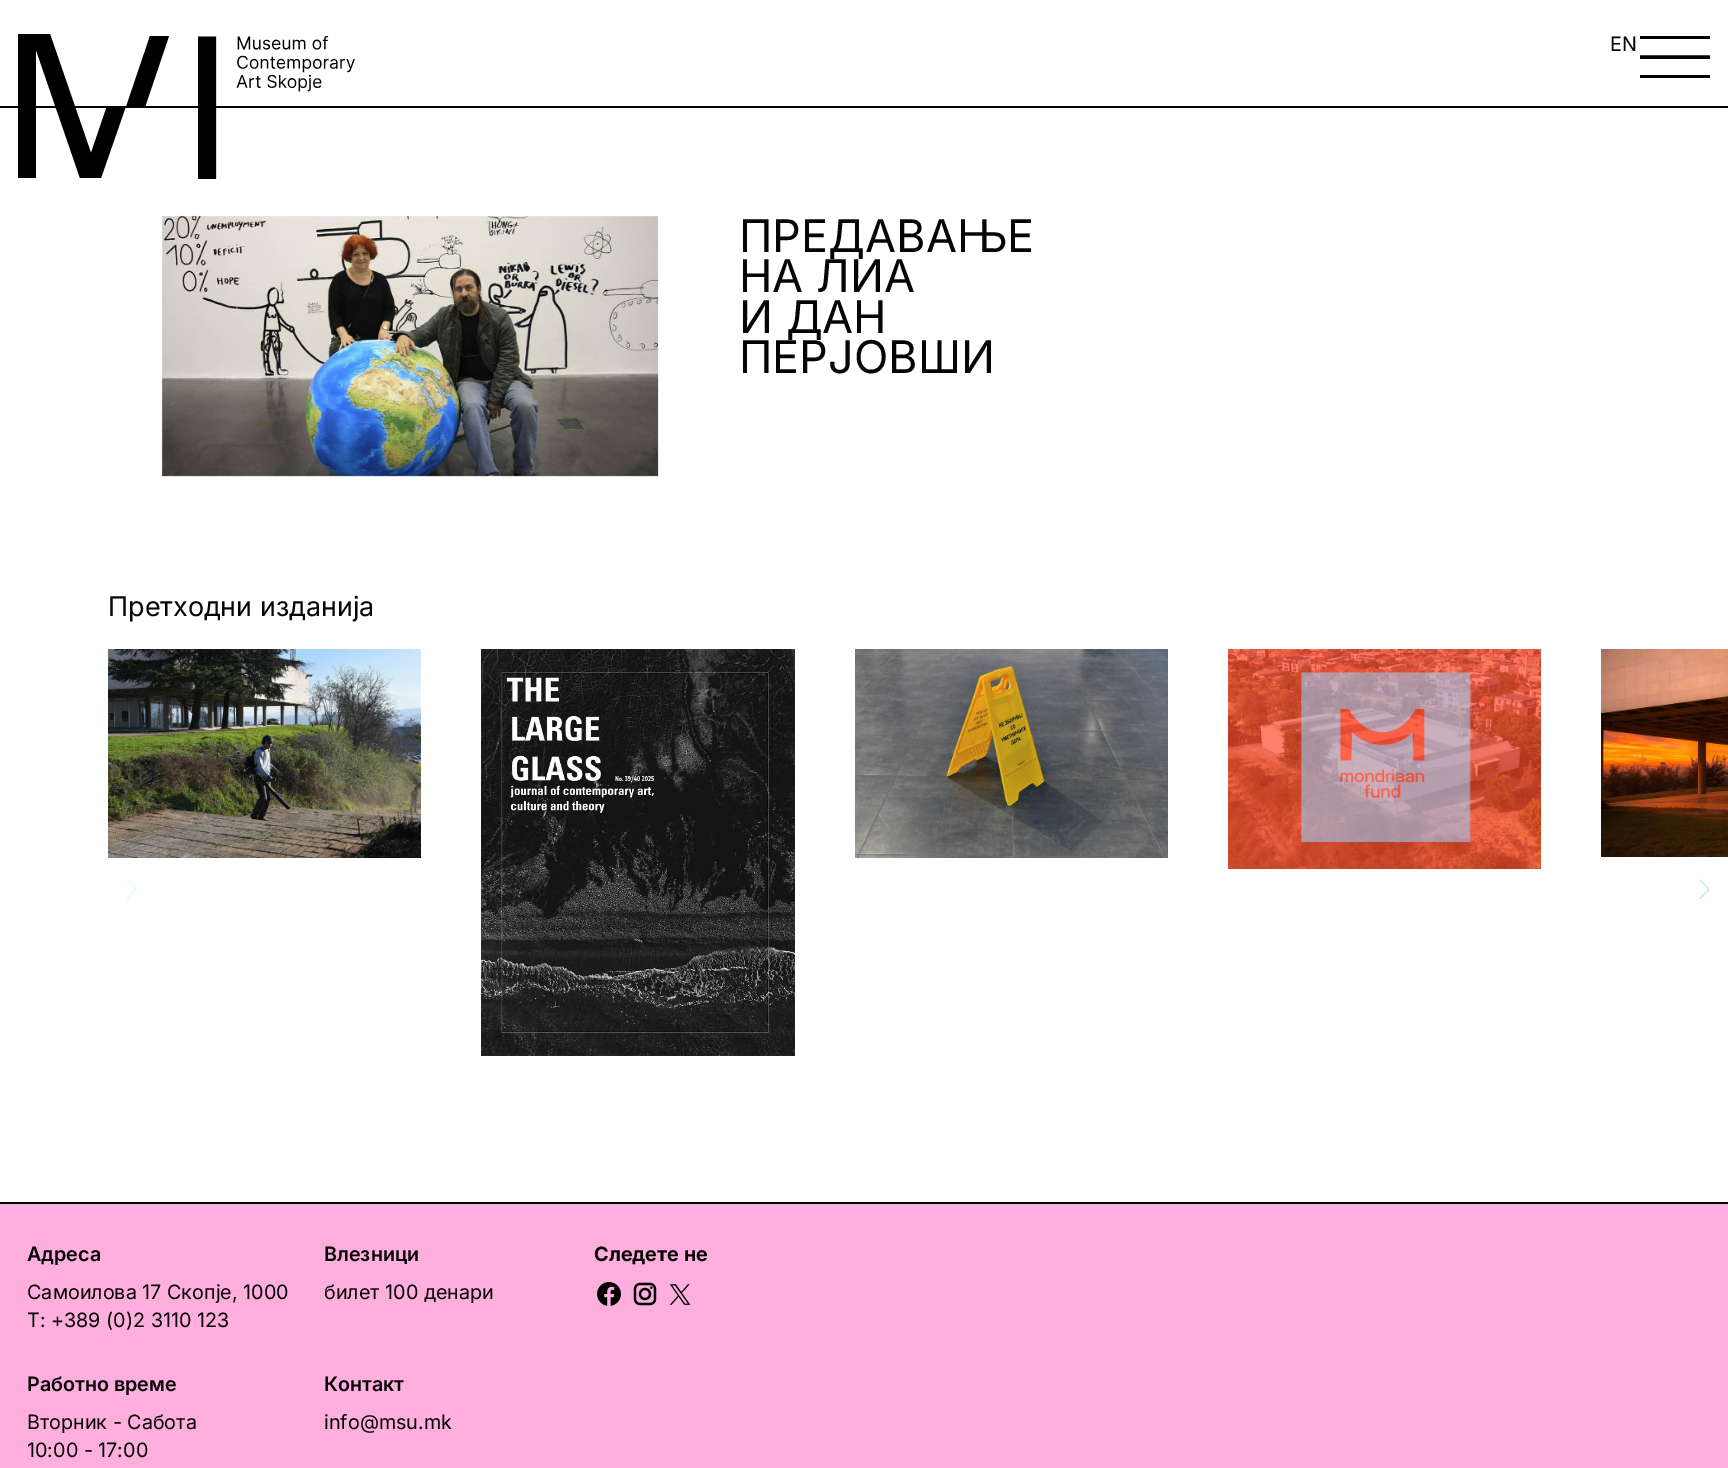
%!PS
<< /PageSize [1728 1468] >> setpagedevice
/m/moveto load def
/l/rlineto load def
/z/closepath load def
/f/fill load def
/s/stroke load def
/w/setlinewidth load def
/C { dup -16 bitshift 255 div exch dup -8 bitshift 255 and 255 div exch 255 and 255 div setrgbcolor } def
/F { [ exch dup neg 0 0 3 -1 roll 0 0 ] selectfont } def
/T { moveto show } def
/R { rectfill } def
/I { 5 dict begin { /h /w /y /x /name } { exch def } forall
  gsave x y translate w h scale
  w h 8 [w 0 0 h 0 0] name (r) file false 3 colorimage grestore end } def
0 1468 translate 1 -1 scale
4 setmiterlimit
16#FFFFFF C
0 0 1728 1468 R
16#050505 C
0 106 1728 2 R
16#000000 C
107 106 m 19 0 l -25 72 l -21 0 l -44 -128 l 0 128 l -18 0 l 0 -144 l 32 0 l 41 119 l z f
150 36 m 19 0 l -24 71 l -19 0 l z f
(1.rgb) 198 36 157 143 I
/Inter-Regular 19.75 F
16#050505 C
(EN) 1610 51 T
16#000000 C
1640 36 70 3 R
3.4 w
1640 57 m 70 0 l s
1640 75 70 3 R
(2.rgb) 161 215 498 262 I
/Inter-Regular 45 F
16#050505 C
(ПРЕДАВАЊЕ) 739 252 T
(НА ЛИА) 739 292 T
(И ДАН) 739 333 T
(ПЕРЈОВШИ) 739 373 T
/Inter-Regular 27 F
(Претходни изданија) 108 616 T
(3.rgb) 108 649 313 209 I
(4.rgb) 481 649 314 407 I
(5.rgb) 855 649 313 209 I
(6.rgb) 1228 649 313 220 I
(7.rgb) 1601 649 127 208 I
(8.rgb) 126 879 11 20 I
(9.rgb) 1699 879 11 20 I
16#FFAFDD C
0 1204 1728 264 R
16#000000 C
0 1202 1728 2 R
/Inter-SemiBold 19.75 F
16#050505 C
(Адреса) 27 1261 T
/Inter-Regular 19.75 F
(Самоилова 17 Скопје, 1000) 27 1299 T
(T: +389 \(0\)2 3110 123) 27 1327 T
/Inter-SemiBold 19.75 F
(Влезници) 324 1261 T
/Inter-Regular 19.75 F
(билет 100 денари) 324 1299 T
/Inter-SemiBold 19.75 F
(Работно време) 27 1391 T
/Inter-Regular 19.75 F
(Вторник - Сабота) 27 1429 T
(10:00 - 17:00) 27 1457 T
/Inter-SemiBold 19.75 F
(Контакт) 324 1391 T
/Inter-Regular 19.75 F
(info@msu.mk) 324 1429 T
/Inter-Bold 19.75 F
(Следете не) 594 1261 T
(10.rgb) 597 1282 24 24 I
(11.rgb) 633 1282 24 24 I
(12.rgb) 669 1284 22 21 I
showpage
